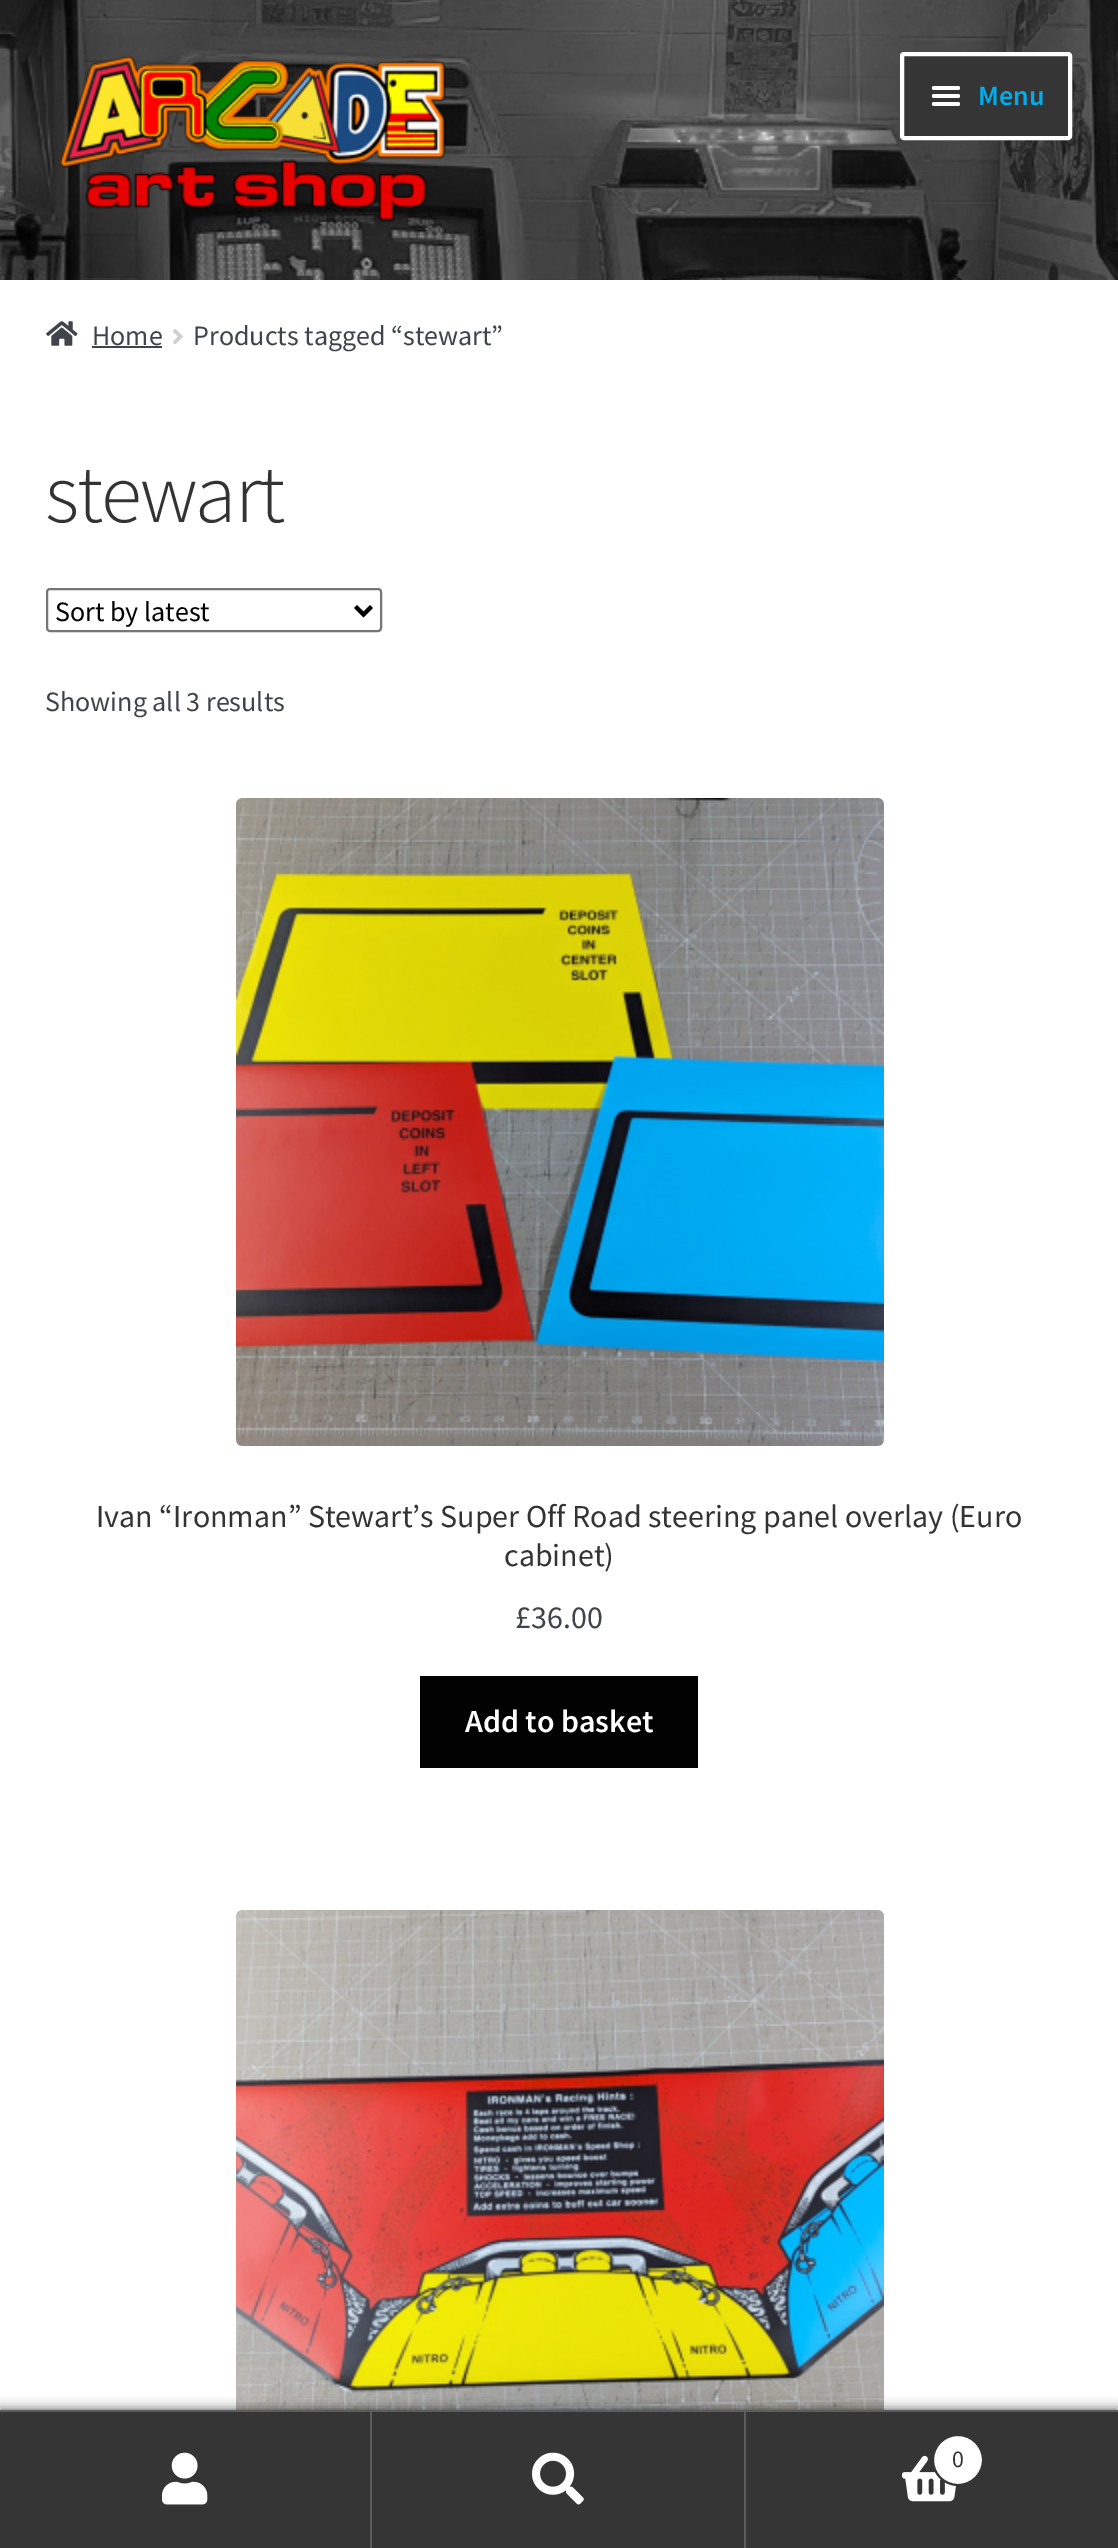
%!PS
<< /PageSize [1118 2548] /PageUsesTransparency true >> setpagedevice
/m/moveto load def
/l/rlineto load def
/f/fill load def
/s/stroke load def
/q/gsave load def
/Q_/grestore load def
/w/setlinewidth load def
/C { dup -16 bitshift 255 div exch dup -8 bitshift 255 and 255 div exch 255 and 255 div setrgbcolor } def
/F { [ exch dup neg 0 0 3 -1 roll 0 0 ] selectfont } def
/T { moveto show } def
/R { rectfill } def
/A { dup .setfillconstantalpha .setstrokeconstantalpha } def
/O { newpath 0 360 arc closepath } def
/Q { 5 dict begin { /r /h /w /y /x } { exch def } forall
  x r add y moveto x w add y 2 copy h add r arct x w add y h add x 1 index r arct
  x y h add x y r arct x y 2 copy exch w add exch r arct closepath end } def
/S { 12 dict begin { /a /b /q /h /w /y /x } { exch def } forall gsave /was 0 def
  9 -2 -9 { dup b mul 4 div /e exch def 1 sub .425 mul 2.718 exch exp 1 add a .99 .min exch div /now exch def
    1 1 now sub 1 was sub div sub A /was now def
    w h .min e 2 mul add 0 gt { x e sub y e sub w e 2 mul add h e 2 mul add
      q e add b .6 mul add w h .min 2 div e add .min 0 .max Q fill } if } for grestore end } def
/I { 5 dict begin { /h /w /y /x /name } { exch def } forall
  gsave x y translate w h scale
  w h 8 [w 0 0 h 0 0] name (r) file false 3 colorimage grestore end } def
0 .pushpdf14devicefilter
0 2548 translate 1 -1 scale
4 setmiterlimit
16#FFFFFF C
0 0 1118 2548 R
(1.rgb) 0 0 1118 280 I
(2.rgb) 60 55 386 167 I
16#353535 C
902 54 168 84 2 Q q f Q_
16#FFFFFF C
4 w
s
932 86 28 4 2 Q f
932 94 28 4 2 Q f
/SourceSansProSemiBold-SemiBold 28 F
16#00AEEF C
(Menu) 978 105 T
16#FFFFFF C
932 102 28 4 2 Q f
(3.rgb) 46 321 32 25 I
/SourceSansPro-Regular 28 F
16#404349 C
(Home) 92 345 T
92 346 70 2 R
(4.rgb) 173 329 10 16 I
(Products tagged “stewart”) 193 345 T
/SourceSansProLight-Light 84 F
16#333333 C
45 522 m -2 0 (stewart) ashow
16#767676 C
2 w
47 589 334 42 3 Q s
16#000000 C
4 w
355.5 606.5 m 8 8 l 8 -8 l s
/SourceSansPro-Regular 28 F
(Sort by latest) 55 621 T
16#404349 C
(Showing all 3 results) 45 711 T
(5.rgb) 236 798 648 648 I
/SourceSansPro-Regular 32 F
16#333333 C
(Ivan “Ironman” Stewart’s Super Off Road steering panel overlay \(Euro) 96 1527 T
(cabinet\)) 504 1566 T
16#404349 C
(£36.00) 515 1628 T
16#020202 C
420 1676 278 92 R
/SourceSansProSemiBold-SemiBold 32 F
16#FFFFFF C
(Add to basket) 465 1732 T
(6.rgb) 236 1910 648 500 I
16#000000 C
0 2410 1118 138 0 6 .7 S
16#5D5D5D C
0 2410 1118 2 R
16#353535 C
0 2412 370 136 R
16#5D5D5D C
370 2412 2 136 R
(7.rgb) 162 2452 46 53 I
16#353535 C
372 2412 372 136 R
16#5D5D5D C
744 2412 2 136 R
(8.rgb) 532 2452 52 53 I
16#353535 C
746 2412 372 136 R
(9.rgb) 902 2455 55 47 I
16#FFFFFF C
958 2460 25 O q f Q_
16#353535 C
2 w
s
/SourceSansPro-Regular 24 F
16#333333 C
(0) 952 2467 T
.poppdf14devicefilter showpage
